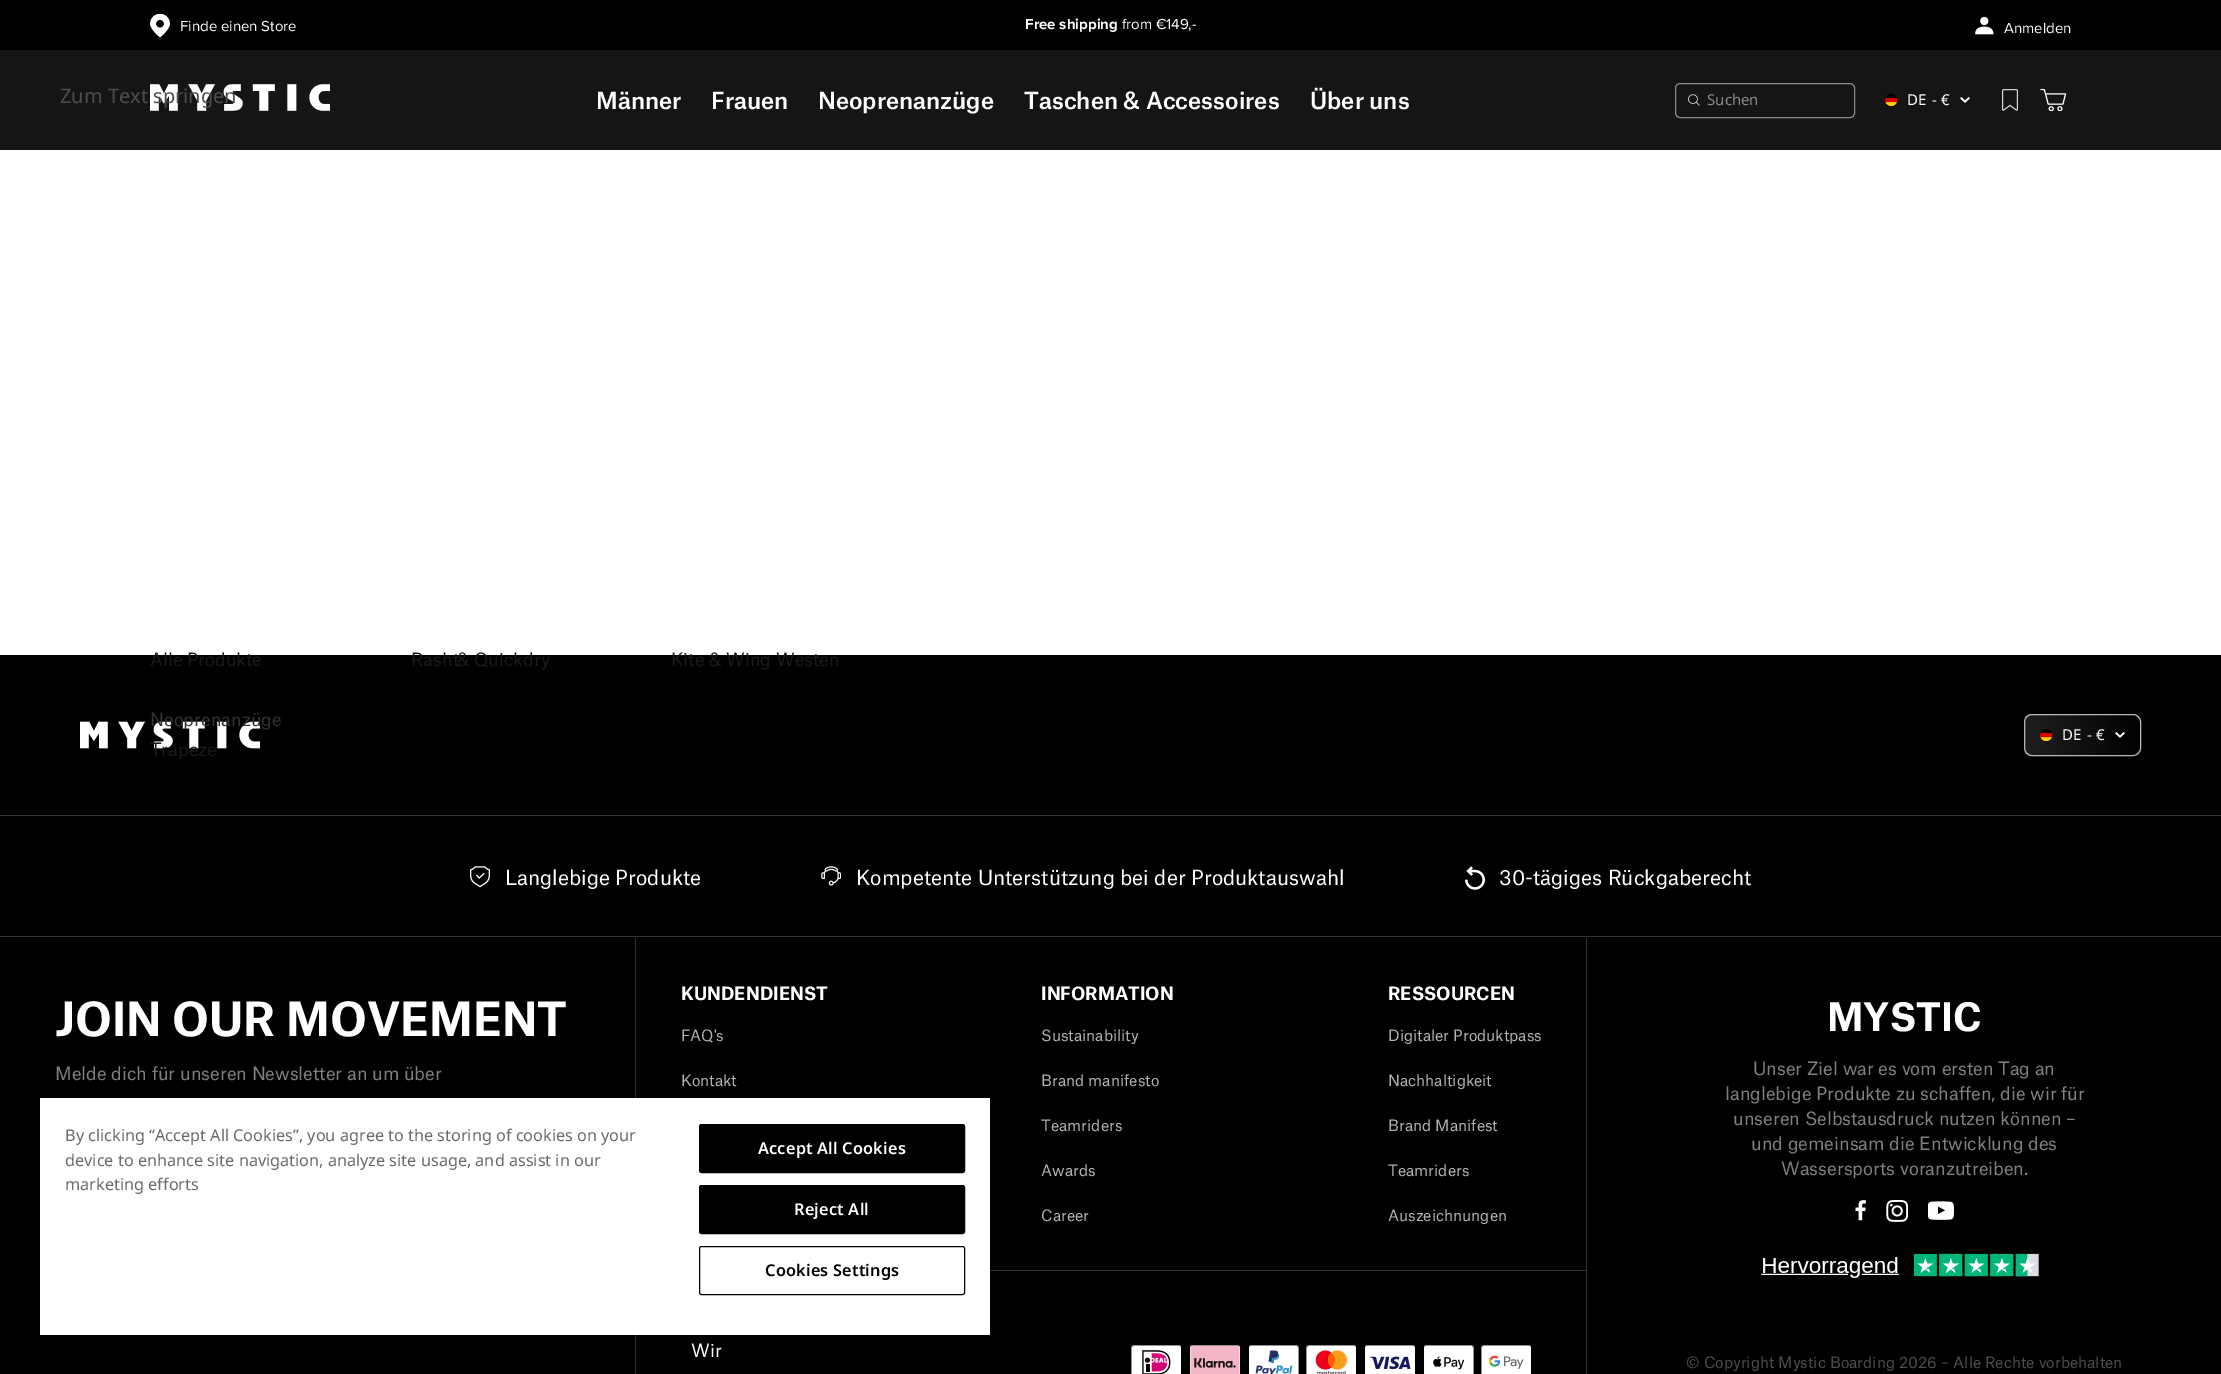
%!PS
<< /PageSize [2221 1374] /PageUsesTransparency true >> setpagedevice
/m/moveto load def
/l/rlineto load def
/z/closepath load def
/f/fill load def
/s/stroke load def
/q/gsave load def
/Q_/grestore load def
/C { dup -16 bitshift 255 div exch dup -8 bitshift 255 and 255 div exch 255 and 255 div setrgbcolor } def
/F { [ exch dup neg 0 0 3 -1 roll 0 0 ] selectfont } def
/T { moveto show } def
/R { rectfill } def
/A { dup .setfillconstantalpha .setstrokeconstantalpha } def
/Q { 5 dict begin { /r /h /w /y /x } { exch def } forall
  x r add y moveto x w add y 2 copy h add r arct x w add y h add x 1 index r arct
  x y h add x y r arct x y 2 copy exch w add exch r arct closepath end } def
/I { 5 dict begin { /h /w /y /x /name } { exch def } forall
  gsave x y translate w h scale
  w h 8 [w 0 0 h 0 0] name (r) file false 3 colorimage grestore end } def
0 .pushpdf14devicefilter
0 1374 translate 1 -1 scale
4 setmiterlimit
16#FFFFFF C
0 0 2221 1374 R
16#000000 C
0 0 2221 50 R
(1.rgb) 150 14 20 24 I
/ProximaNova-Regular 15 F
16#FFFFFF C
(Finde einen Store) 180 31 T
/ProximaNova-Bold 15 F
(Free shipping) 1025 29 T
/ProximaNova-Regular 15 F
(from €149,-) 1122 29 T
(2.rgb) 1975 16 19 19 I
(Anmelden) 2004 33 T
16#151515 C
0 50 2221 100 R
(3.rgb) 150 84 180 27 I
/NotoSans-Regular 20 F
16#4D4D4D C
(Zum Text springen) 60 103 T
/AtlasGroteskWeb-Medium 22.5 F
16#FFFFFF C
(Männer) 596 109 T
(Frauen) 711 109 T
(Neoprenanzüge) 818 109 T
(Taschen & Accessoires) 1024 109 T
(Über uns) 1310 109 T
16#8A8A8A C
1675.5 83.5 179 34 4.5 Q s
(4.rgb) 1688 94 12 12 I
/NotoSans-Regular 15 F
(Suchen) 1707 105 T
(5.rgb) 1885 94 13 12 I
16#FFFFFF C
(DE) 1907 105 T
(-) 1932 105 T
(€) 1941 105 T
(6.rgb) 1960 97 10 6 I
(7.rgb) 2002 89 16 22 I
(8.rgb) 2040 89 26 22 I
16#000000 C
0 655 2221 719 R
/AtlasGroteskWeb-Regular 17.5 F
16#1A1A1A C
(Alle Produkte) 150 666 T
(9.rgb) 80 721 180 28 I
16#323232 C
(Neoprenanzüge) 150 726 T
16#1A1A1A C
(Trapeze) 150 756 T
(Rash & Quickdry) 411 666 T
(t) 453 666 T
(Kite & Wing Westen) 671 666 T
q
2024 714 117 42 8 Q clip newpath
q 2025 714 m 115 0 l 0 42 l -115 0 l z clip newpath
<< /ShadingType 2 /ColorSpace /DeviceRGB /Coords [2025 735 2140 735] /Extend [true true] /Function << /FunctionType 2 /Domain [0 1] /C0 [.122 .122 .122] /C1 [0 0 0] /N 1 >> >> shfill Q_
q 2140 714 m 1 0 l 0 42 l -1 0 l z clip newpath
<< /ShadingType 2 /ColorSpace /DeviceRGB /Coords [2140 735 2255 735] /Extend [true true] /Function << /FunctionType 2 /Domain [0 1] /C0 [.122 .122 .122] /C1 [0 0 0] /N 1 >> >> shfill Q_
Q_
0.7 A
16#FFFFFF C
2024.5 714.5 116 41 7.5 Q s
1 A
(10.rgb) 2040 729 13 12 I
/NotoSans-Regular 15 F
(DE) 2062 740 T
(-) 2087 740 T
(€) 2096 740 T
(11.rgb) 2115 732 10 6 I
16#313131 C
0 815 2221 1 R
0 936 2221 1 R
(12.rgb) 470 866 20 22 I
/AtlasGroteskWeb-Regular 20 F
16#FFFFFF C
(Langlebige Produkte) 505 885 T
(13.rgb) 821 866 20 20 I
(Kompetente Unterstützung bei der Produktauswahl) 856 885 T
(14.rgb) 1465 866 20 24 I
(30-tägiges Rückgaberecht) 1499 885 T
/AtlasGroteskWeb-Bold 45 F
(JOIN OUR MOVEMENT) 55 1036 T
/AtlasGroteskWeb-Regular 17.5 F
16#808080 C
(Melde dich für unseren Newsletter an um über) 55 1080 T
16#313131 C
635 938 1 436 R
990 1270 596 1 R
/AtlasGroteskWeb-Bold 17.5 F
16#FFFFFF C
(KUNDENDIENST) 681 1000 T
/AtlasGroteskWeb-Regular 15 F
16#B3B3B3 C
(FAQ's) 681 1041 T
(Kontakt) 681 1086 T
/AtlasGroteskWeb-Bold 17.5 F
16#FFFFFF C
(INFORMATION) 1041 1000 T
/AtlasGroteskWeb-Regular 15 F
16#B3B3B3 C
(Sustainability) 1041 1041 T
(Brand manifesto) 1041 1086 T
(Teamriders) 1041 1131 T
(Awards) 1041 1176 T
(Career) 1041 1221 T
/AtlasGroteskWeb-Bold 17.5 F
16#FFFFFF C
(RESSOURCEN) 1388 1000 T
/AtlasGroteskWeb-Regular 15 F
16#B3B3B3 C
(Digitaler Produktpass) 1388 1041 T
(Nachhaltigkeit) 1388 1086 T
(Brand Manifest) 1388 1131 T
(Teamriders) 1388 1176 T
(Auszeichnungen) 1388 1221 T
/AtlasGroteskWeb-Regular 17.5 F
16#FFFFFF C
(Wir) 691 1357 T
(15.rgb) 1131 1345 50 29 I
(16.rgb) 1190 1345 50 29 I
(17.rgb) 1249 1345 50 29 I
(18.rgb) 1306 1345 50 29 I
(19.rgb) 1365 1345 50 29 I
(20.rgb) 1424 1345 50 29 I
(21.rgb) 1481 1345 50 29 I
16#313131 C
1586 938 1 436 R
/AtlasGroteskWeb-Bold 37.5 F
16#FFFFFF C
(MYSTIC) 1827 1031 T
/AtlasGroteskWeb-Regular 17.5 F
16#808080 C
(Unser Ziel war es vom ersten Tag an) 1753 1075 T
(langlebige Produkte zu schaffen, die wir für) 1725 1100 T
(unseren Selbstausdruck nutzen können –) 1733 1125 T
(und gemeinsam die Entwicklung des) 1751 1150 T
(Wassersports voranzutreiben.) 1781 1175 T
(22.rgb) 1855 1200 11 21 I
(23.rgb) 1886 1200 22 22 I
(24.rgb) 1928 1201 26 19 I
(25.rgb) 1761 1253 278 25 I
/AtlasGroteskWeb-Regular 15 F
16#4D4D4D C
(© Copyright Mystic Boarding 2026 – Alle Rechte vorbehalten) 1686 1368 T
16#FFFFFF C
40 1098 950 237 R
/NotoSans-Regular 16.25 F
16#696969 C
(By clicking “Accept All Cookies”, you agree to the storing of cookies on your) 65 1141 T
(device to enhance site navigation, analyze site usage, and assist in our) 65 1166 T
(marketing efforts) 65 1190 T
16#000000 C
699.5 1124.5 265 48 2 Q q f Q_
s
/NotoSans-SemiBold 16.25 F
16#FFFFFF C
758 1154 m .2 0 (Accept All Cookies) ashow
16#000000 C
699.5 1185.5 265 48 2 Q q f Q_
s
16#FFFFFF C
794 1215 m .2 0 (Reject All) ashow
16#000000 C
699.5 1246.5 265 48 2 Q s
765 1276 m .2 0 (Cookies Settings) ashow
.poppdf14devicefilter showpage
